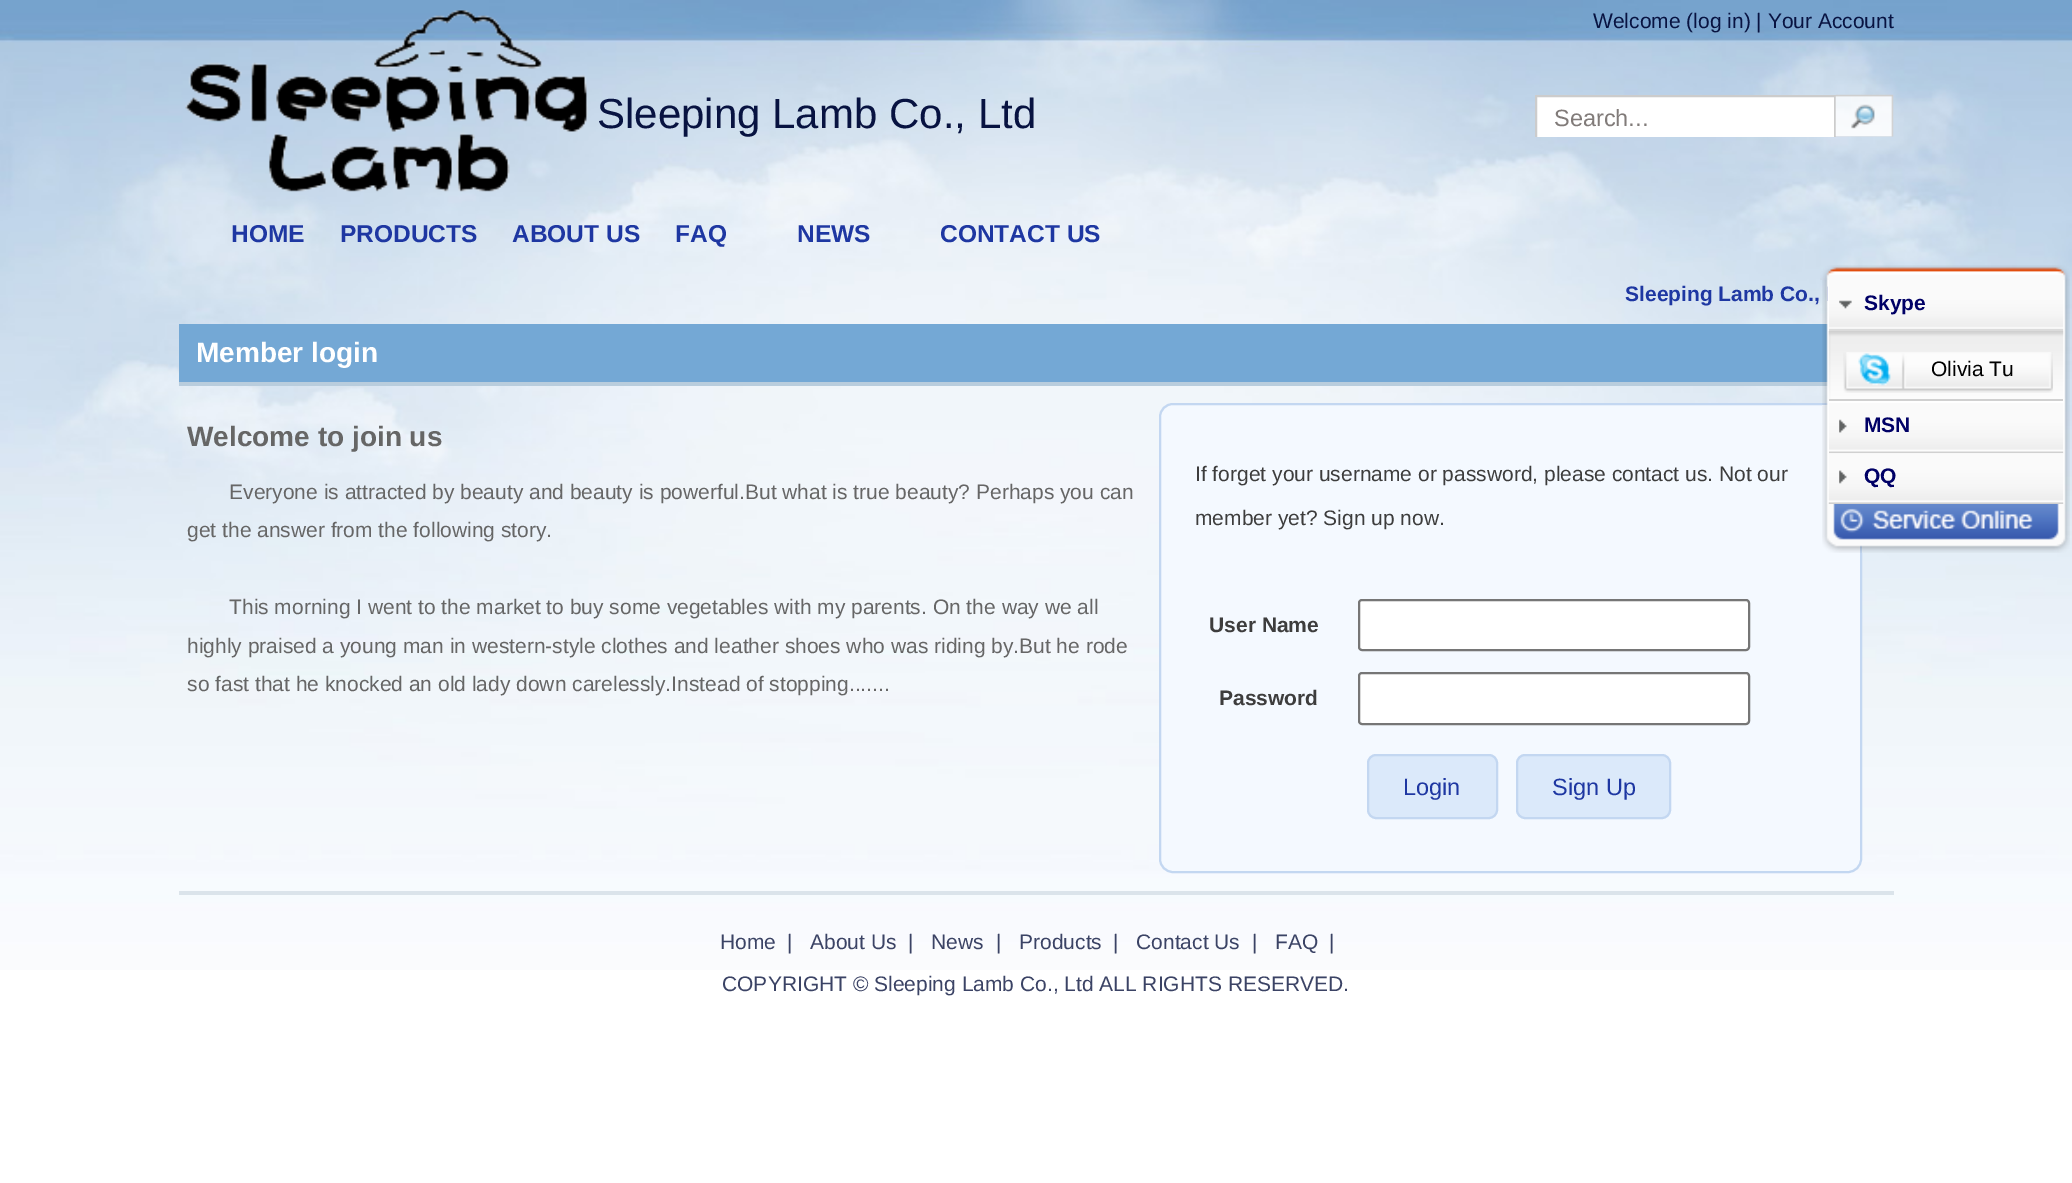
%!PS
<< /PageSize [2072 1183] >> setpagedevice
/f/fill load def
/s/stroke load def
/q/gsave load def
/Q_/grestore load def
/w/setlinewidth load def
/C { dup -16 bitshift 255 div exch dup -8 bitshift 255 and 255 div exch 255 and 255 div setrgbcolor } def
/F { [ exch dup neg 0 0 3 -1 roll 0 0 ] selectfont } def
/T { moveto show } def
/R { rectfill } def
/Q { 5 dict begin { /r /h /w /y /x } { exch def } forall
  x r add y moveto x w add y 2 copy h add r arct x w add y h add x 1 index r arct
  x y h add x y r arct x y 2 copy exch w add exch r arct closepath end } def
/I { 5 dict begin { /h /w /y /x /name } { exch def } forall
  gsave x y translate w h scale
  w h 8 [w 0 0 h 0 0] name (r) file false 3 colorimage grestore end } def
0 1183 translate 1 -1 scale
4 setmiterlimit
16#FFFFFF C
0 0 2072 1183 R
(1.rgb) 0 0 2072 970 I
(2.rgb) 185 9 403 183 I
/LiberationSans-Regular 42 F
16#081341 C
(Sleeping Lamb Co., Ltd) 597 128 T
/LiberationSans-Regular 21 F
(Welcome \(log in\) | Your Account) 1593 28 T
16#FFFFFF C
1537 97 297 40 R
q
1491 95 403 42 rectclip
16#CCCCCC C
2 w
1536 96 299 47 rectstroke
Q_
/LiberationSans-Regular 23.5 F
16#817B79 C
(Search...) 1554 126 T
(3.rgb) 1835 94 59 43 I
/LiberationSans-Bold 24.5 F
16#1E37A2 C
(HOME) 231 242 T
(PRODUCTS) 340 242 T
(ABOUT US) 512 242 T
(FAQ) 675 242 T
(NEWS) 797 242 T
(CONTACT US) 940 242 T
/LiberationSans-Bold 21 F
(Sleeping Lamb Co.,) 1625 301 T
16#74A8D5 C
179 324 1649 58 R
16#B9CDDD C
179 382 1649 4 R
/LiberationSans-Bold 28 F
16#FFFFFF C
(Member login) 196 362 T
16#666666 C
(Welcome to join us) 187 446 T
/LiberationSans-Regular 21 F
(Everyone is attracted by beauty and beauty is powerful.But what is true beauty? Perhaps you can) 229 499 T
(get the answer from the following story.) 187 537 T
(This morning I went to the market to buy some vegetables with my parents. On the way we all) 229 614 T
(highly praised a young man in western-style clothes and leather shoes who was riding by.But he rode) 187 653 T
(so fast that he knocked an old lady down carelessly.Instead of stopping.......) 187 691 T
16#F4F9FF C
1160 404 701 468 13 Q q f Q_
16#C3D7F1 C
2 w
s
16#3D3D3D C
(If forget your username or password, please contact us. Not our) 1195 481 T
(member yet? Sign up now.) 1195 525 T
/LiberationSans-Bold 21 F
(User Name) 1209 632 T
16#FFFFFF C
1359 600 390 50 3 Q q f Q_
16#767676 C
s
16#3D3D3D C
(Password) 1219 705 T
16#FFFFFF C
1359 673 390 51 3 Q q f Q_
16#767676 C
s
16#DBE9FA C
1368 755 129 63 8 Q q f Q_
16#C3D7F1 C
s
/LiberationSans-Regular 23.5 F
16#1E37A2 C
(Login) 1403 795 T
16#DBE9FA C
1517 755 153 63 8 Q q f Q_
16#C3D7F1 C
s
16#1E37A2 C
(Sign Up) 1552 795 T
(4.rgb) 1820 265 250 15 I
(5.rgb) 1822 280 248 224 I
(6.rgb) 1829 280 235 51 I
(7.rgb) 1839 300 13 9 I
/LiberationSans-Bold 21 F
16#000066 C
(Skype) 1864 310 T
(8.rgb) 1828 331 236 70 I
16#D0D0D0 C
1829 399 234 2 R
(9.rgb) 1843 352 210 41 I
/LiberationSans-Regular 21 F
16#000000 C
(Olivia Tu) 1931 376 T
(10.rgb) 1829 403 235 51 I
(11.rgb) 1839 419 8 14 I
/LiberationSans-Bold 21 F
16#000066 C
(MSN) 1864 432 T
(12.rgb) 1828 453 236 51 I
(13.rgb) 1839 470 8 14 I
(QQ) 1864 483 T
(14.rgb) 1822 504 248 49 I
16#DBE4EB C
179 891 1715 4 R
/LiberationSans-Regular 21 F
16#3B4365 C
(Home) 720 949 T
(|) 787 949 T
(About Us) 810 949 T
(|) 908 949 T
(News) 931 949 T
(|) 996 949 T
(Products) 1019 949 T
(|) 1113 949 T
(Contact Us) 1136 949 T
(|) 1252 949 T
(FAQ) 1275 949 T
(|) 1329 949 T
(COPYRIGHT © Sleeping Lamb Co., Ltd ALL RIGHTS RESERVED.) 722 991 T
showpage
